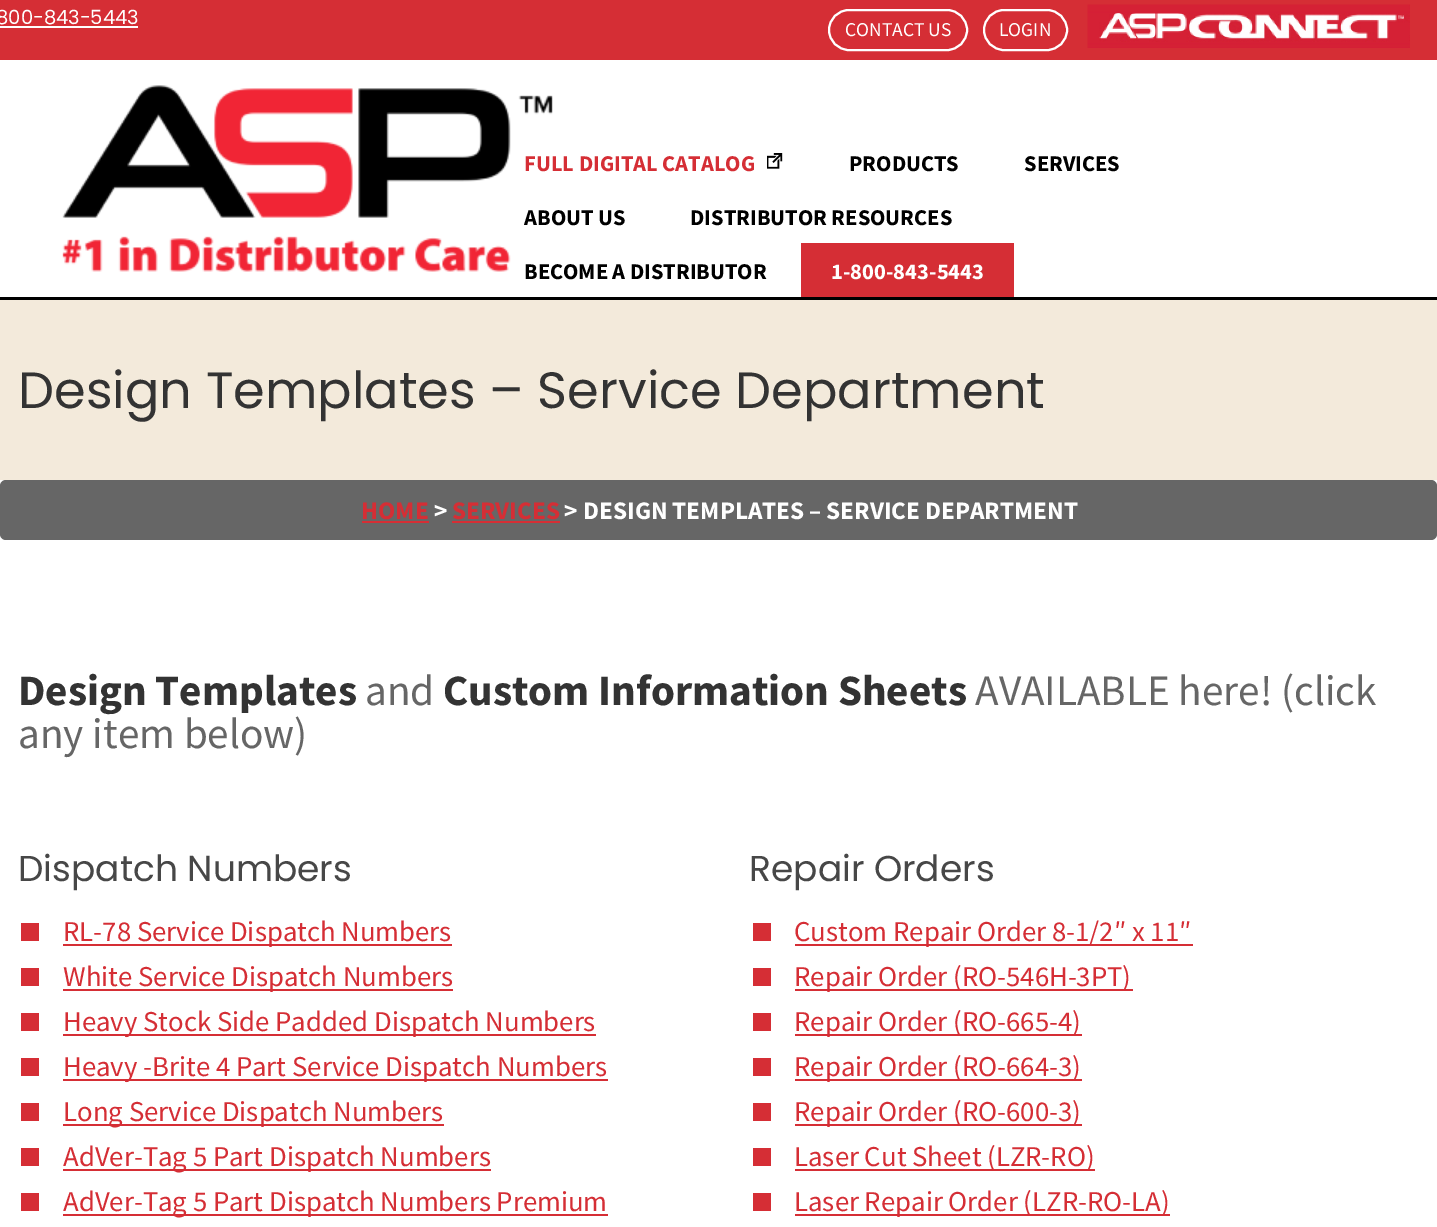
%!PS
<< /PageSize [1437 1227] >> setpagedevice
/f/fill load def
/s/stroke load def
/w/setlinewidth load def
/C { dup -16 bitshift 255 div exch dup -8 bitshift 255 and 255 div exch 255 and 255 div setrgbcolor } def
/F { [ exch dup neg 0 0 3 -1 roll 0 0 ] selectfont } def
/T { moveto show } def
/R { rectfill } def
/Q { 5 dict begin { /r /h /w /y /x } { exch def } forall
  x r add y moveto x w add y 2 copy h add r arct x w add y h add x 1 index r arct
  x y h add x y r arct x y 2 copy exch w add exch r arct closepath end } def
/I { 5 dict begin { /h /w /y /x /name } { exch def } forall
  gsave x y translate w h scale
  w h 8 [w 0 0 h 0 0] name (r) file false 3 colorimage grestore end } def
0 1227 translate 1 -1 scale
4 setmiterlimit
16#FFFFFF C
0 0 1437 1227 R
16#D52E35 C
0 0 1437 60 R
/Poppins-Regular 19.5 F
16#FFFFFF C
(800-843-5443) -4 24 T
0 26 138 2 R
2 w
829 10 138 40 20 Q s
/SourceSansPro-Regular 19.5 F
(CONTACT US) 845 36 T
984 10 83 40 20 Q s
(LOGIN) 999 36 T
(1.rgb) 1087 4 323 44 I
16#000000 C
0 297 1437 3 R
(2.rgb) 62 85 491 187 I
/SourceSansPro-Bold 22.5 F
16#D52E35 C
(FULL DIGITAL CATALOG) 524 171 T
(3.rgb) 767 153 16 16 I
16#000000 C
(PRODUCTS) 849 171 T
(SERVICES) 1024 171 T
(ABOUT US) 524 225 T
(DISTRIBUTOR RESOURCES) 690 225 T
(BECOME A DISTRIBUTOR) 524 279 T
16#D52E35 C
801 243 213 54 R
16#FFFFFF C
(1-800-843-5443) 831 279 T
16#F3EADB C
0 300 1437 180 R
/Poppins-Regular 51 F
16#333333 C
(Design Templates – Service Department) 18 408 T
16#666666 C
0 480 1437 60 6 Q f
/SourceSansPro-Bold 25.25 F
16#D52E35 C
(HOME) 361 519 T
362 521 67 2 R
16#FFFFFF C
(>) 434 519 T
16#D52E35 C
(SERVICES) 452 519 T
452 521 108 2 R
16#FFFFFF C
(>) 564 519 T
(DESIGN TEMPLATES – SERVICE DEPARTMENT) 583 519 T
/SourceSansPro-Bold 43.25 F
16#333333 C
(Design Templates) 18 705 T
/SourceSansPro-Regular 43.25 F
16#666666 C
(and) 365 705 T
/SourceSansPro-Bold 43.25 F
16#333333 C
(Custom Information Sheets) 443 705 T
/SourceSansPro-Regular 43.25 F
16#666666 C
(AVAILABLE here! \(click) 975 705 T
(any item below\)) 18 748 T
/Poppins-Regular 36 F
16#474747 C
(Dispatch Numbers) 18 881 T
16#D52E35 C
21 923 18 18 R
63 944 389 2 R
/SourceSansPro-Regular 28.75 F
(RL-78 Service Dispatch Numbers) 63 941 T
21 968 18 18 R
63 989 390 2 R
(White Service Dispatch Numbers) 63 986 T
21 1013 18 18 R
63 1034 533 2 R
(Heavy Stock Side Padded Dispatch Numbers) 63 1031 T
21 1058 18 18 R
63 1079 545 2 R
(Heavy -Brite 4 Part Service Dispatch Numbers) 63 1076 T
21 1103 18 18 R
63 1124 381 2 R
(Long Service Dispatch Numbers) 63 1121 T
21 1148 18 18 R
63 1169 428 2 R
(AdVer-Tag 5 Part Dispatch Numbers) 63 1166 T
21 1193 18 18 R
63 1214 545 2 R
(AdVer-Tag 5 Part Dispatch Numbers Premium) 63 1211 T
/Poppins-Regular 36 F
16#474747 C
(Repair Orders) 749 881 T
16#D52E35 C
753 923 18 18 R
795 944 398 2 R
/SourceSansPro-Regular 28.75 F
(Custom Repair Order 8-1/2″ x 11″) 794 941 T
753 968 18 18 R
795 989 338 2 R
(Repair Order \(RO-546H-3PT\)) 794 986 T
753 1013 18 18 R
795 1034 287 2 R
(Repair Order \(RO-665-4\)) 794 1031 T
753 1058 18 18 R
795 1079 287 2 R
(Repair Order \(RO-664-3\)) 794 1076 T
753 1103 18 18 R
795 1124 287 2 R
(Repair Order \(RO-600-3\)) 794 1121 T
753 1148 18 18 R
795 1169 300 2 R
(Laser Cut Sheet \(LZR-RO\)) 794 1166 T
753 1193 18 18 R
795 1214 375 2 R
(Laser Repair Order \(LZR-RO-LA\)) 794 1211 T
showpage
